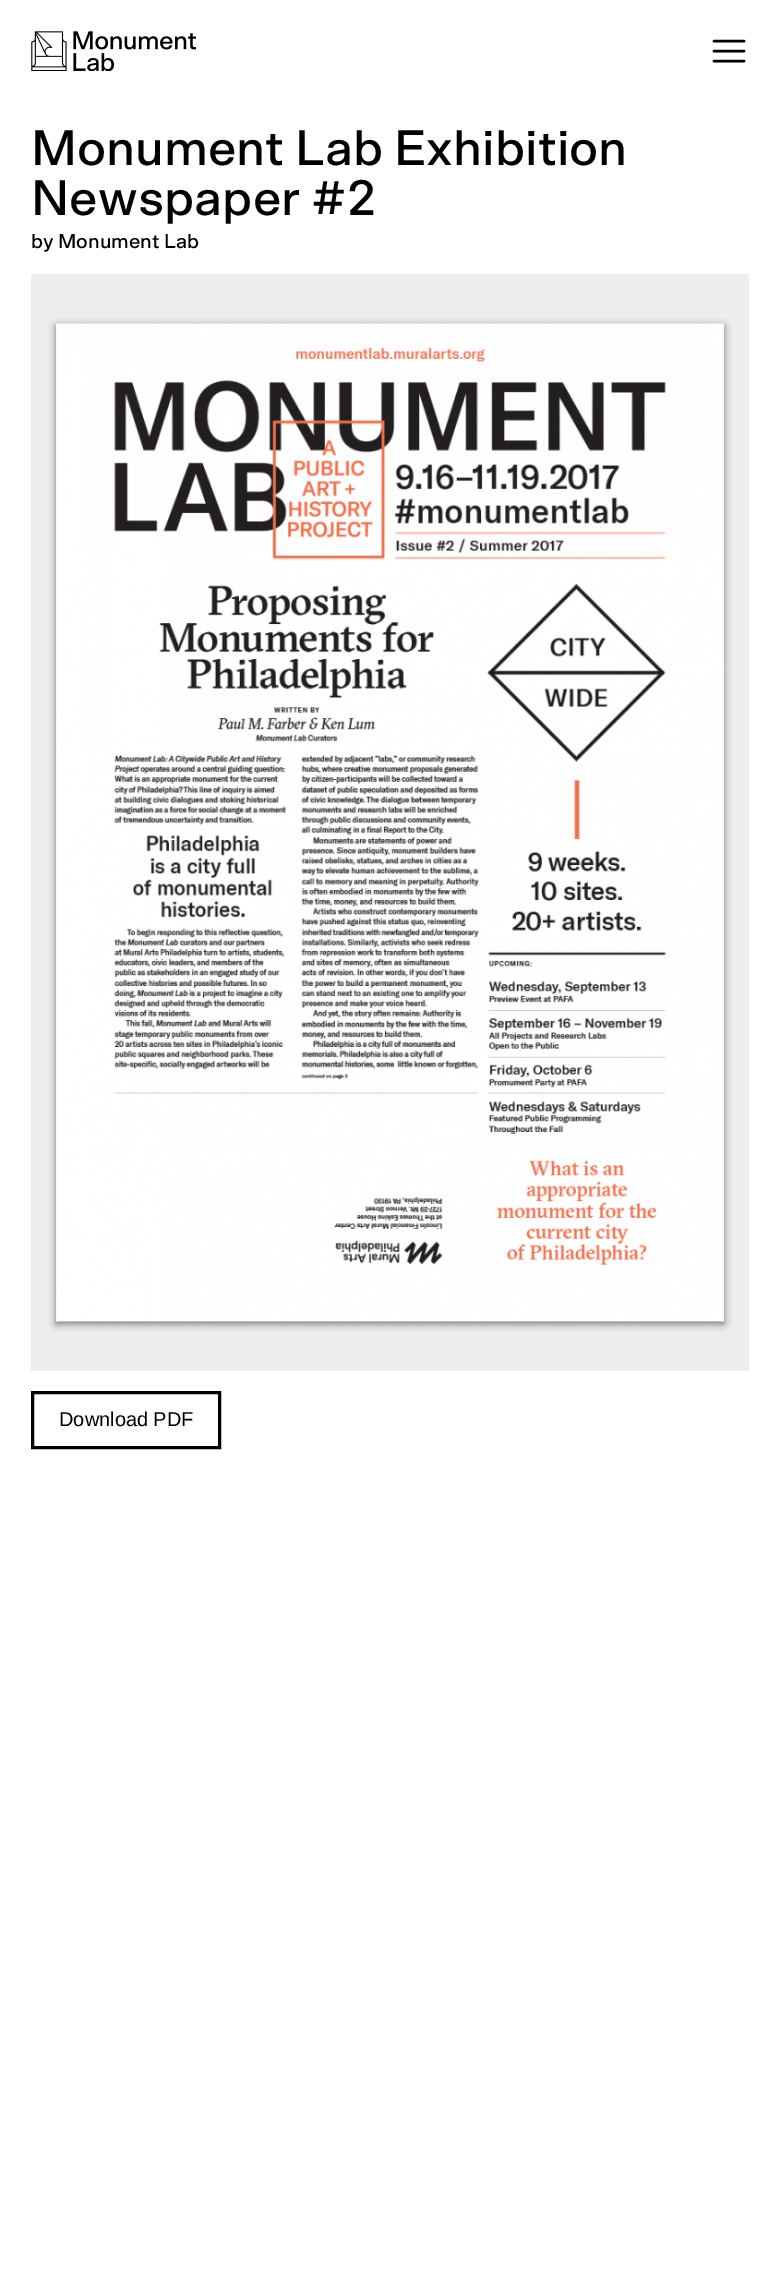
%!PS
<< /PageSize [780 2275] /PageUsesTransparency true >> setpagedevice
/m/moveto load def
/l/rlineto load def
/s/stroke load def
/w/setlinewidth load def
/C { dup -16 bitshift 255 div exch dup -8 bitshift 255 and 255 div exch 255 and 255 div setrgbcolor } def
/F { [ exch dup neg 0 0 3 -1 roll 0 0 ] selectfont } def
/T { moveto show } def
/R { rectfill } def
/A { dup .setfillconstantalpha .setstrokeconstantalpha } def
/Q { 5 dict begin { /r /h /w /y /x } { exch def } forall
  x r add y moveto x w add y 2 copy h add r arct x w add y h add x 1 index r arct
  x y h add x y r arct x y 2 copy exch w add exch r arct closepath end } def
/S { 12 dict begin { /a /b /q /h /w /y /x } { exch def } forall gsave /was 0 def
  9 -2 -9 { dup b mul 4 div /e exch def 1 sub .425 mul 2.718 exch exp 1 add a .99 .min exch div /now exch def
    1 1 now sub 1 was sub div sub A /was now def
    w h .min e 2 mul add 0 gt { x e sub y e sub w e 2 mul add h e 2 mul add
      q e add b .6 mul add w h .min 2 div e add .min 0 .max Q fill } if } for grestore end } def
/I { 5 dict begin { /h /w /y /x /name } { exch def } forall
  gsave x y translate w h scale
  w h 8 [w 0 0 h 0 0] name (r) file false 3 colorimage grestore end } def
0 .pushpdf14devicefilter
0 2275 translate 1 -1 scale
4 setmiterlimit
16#FFFFFF C
0 0 780 2275 R
(1.rgb) 31 31 165 40 I
16#000000 C
2.5 w
1 setlinecap
1 setlinejoin
714 51 m 30 0 l 714 41 m 30 0 l 714 61 m 30 0 l s
/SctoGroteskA-Medium 50 F
(Monument Lab Exhibition) 31 165 T
(Newspaper #2) 31 215 T
/SctoGroteskA-Medium 20 F
(by Monument Lab) 31 248 T
16#EEEEEE C
31 274 718 1097 R
16#000000 C
56 326 668 998 0 4 .5 S
(2.rgb) 56 323 668 999 I
3 w
0 setlinecap
0 setlinejoin
32.5 1392.5 187 55 rectstroke
/LiberationSans-Regular 20 F
(Download PDF) 59 1426 T
.poppdf14devicefilter showpage
